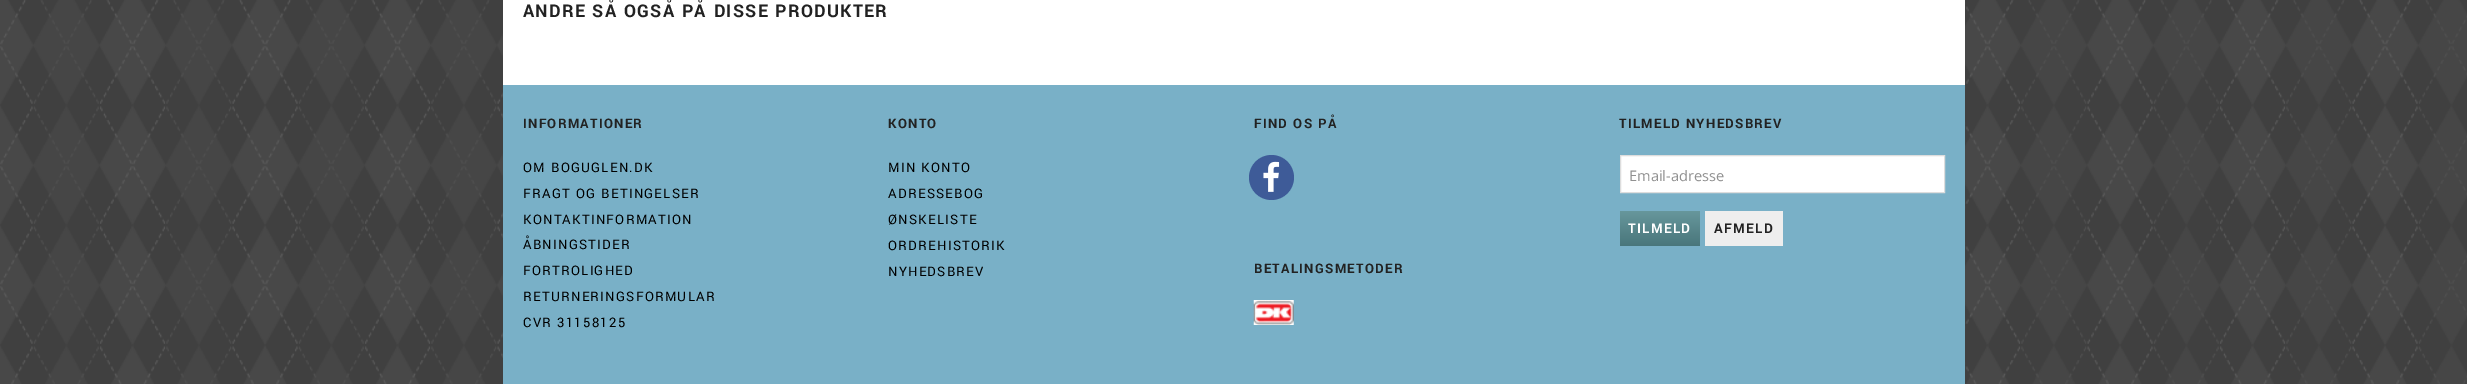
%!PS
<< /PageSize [2467 384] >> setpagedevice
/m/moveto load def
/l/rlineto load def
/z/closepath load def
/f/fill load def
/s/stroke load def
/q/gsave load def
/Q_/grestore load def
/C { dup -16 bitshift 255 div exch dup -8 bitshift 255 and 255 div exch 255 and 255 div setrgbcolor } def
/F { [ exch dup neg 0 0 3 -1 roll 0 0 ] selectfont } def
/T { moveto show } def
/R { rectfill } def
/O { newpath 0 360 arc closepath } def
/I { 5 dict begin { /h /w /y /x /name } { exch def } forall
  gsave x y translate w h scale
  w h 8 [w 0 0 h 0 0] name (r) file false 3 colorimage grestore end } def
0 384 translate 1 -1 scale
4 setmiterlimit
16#FFFFFF C
0 0 2467 384 R
(1.rgb) 0 0 2467 384 I
503 0 1462 85 R
/Yantramanav-Bold 19.5 F
16#222222 C
523 17 m 1.25 0 (ANDRE SÅ OGSÅ PÅ DISSE PRODUKTER) ashow
16#79B0C7 C
503 85 1462 299 R
/Yantramanav-Bold 14.6 F
16#222222 C
523 128 m 1.25 0 (INFORMATIONER) ashow
/Yantramanav-Regular 14.6 F
16#000000 C
523 172 m 1.25 0 (OM BOGUGLEN.DK) ashow
523 198 m 1.25 0 (FRAGT OG BETINGELSER) ashow
523 224 m 1.25 0 (KONTAKTINFORMATION) ashow
523 249 m 1.25 0 (ÅBNINGSTIDER) ashow
523 275 m 1.25 0 (FORTROLIGHED) ashow
523 301 m 1.25 0 (RETURNERINGSFORMULAR) ashow
523 327 m 1.25 0 (CVR 31158125) ashow
/Yantramanav-Bold 14.6 F
16#222222 C
888 128 m 1.25 0 (KONTO) ashow
/Yantramanav-Regular 14.6 F
16#000000 C
888 172 m 1.25 0 (MIN KONTO) ashow
888 198 m 1.25 0 (ADRESSEBOG) ashow
888 224 m 1.25 0 (ØNSKELISTE) ashow
888 250 m 1.25 0 (ORDREHISTORIK) ashow
888 276 m 1.25 0 (NYHEDSBREV) ashow
/Yantramanav-Bold 14.6 F
16#222222 C
1254 128 m 1.25 0 (FIND OS PÅ) ashow
16#3E5B98 C
1271.5 177.5 22.5 O f
(2.rgb) 1263 161 17 31 I
16#222222 C
1254 273 m 1.25 0 (BETALINGSMETODER) ashow
(3.rgb) 1253 300 41 25 I
1619 128 m 1.25 0 (TILMELD NYHEDSBREV) ashow
16#FFFFFF C
1620.5 155.5 m 324 0 l 0 37 l -324 0 l z q f Q_
16#DDDDDD C
s
/OpenSans-Regular 14.6 F
16#919191 C
(Email-adresse) 1629 181 T
q 1620 211 m 80 0 l 0 35 l -80 0 l z clip newpath
<< /ShadingType 2 /ColorSpace /DeviceRGB /Coords [1660 211 1660 246] /Extend [true true] /Function << /FunctionType 2 /Domain [0 1] /C0 [.404 .592 .612] /C1 [.286 .463 .482] /N 1 >> >> shfill Q_
/Yantramanav-Bold 15 F
16#FFFFFF C
1628 233 m 1.25 0 (TILMELD) ashow
16#EEEEEE C
1705 211 78 35 R
16#222222 C
1714 233 m 1.25 0 (AFMELD) ashow
showpage
